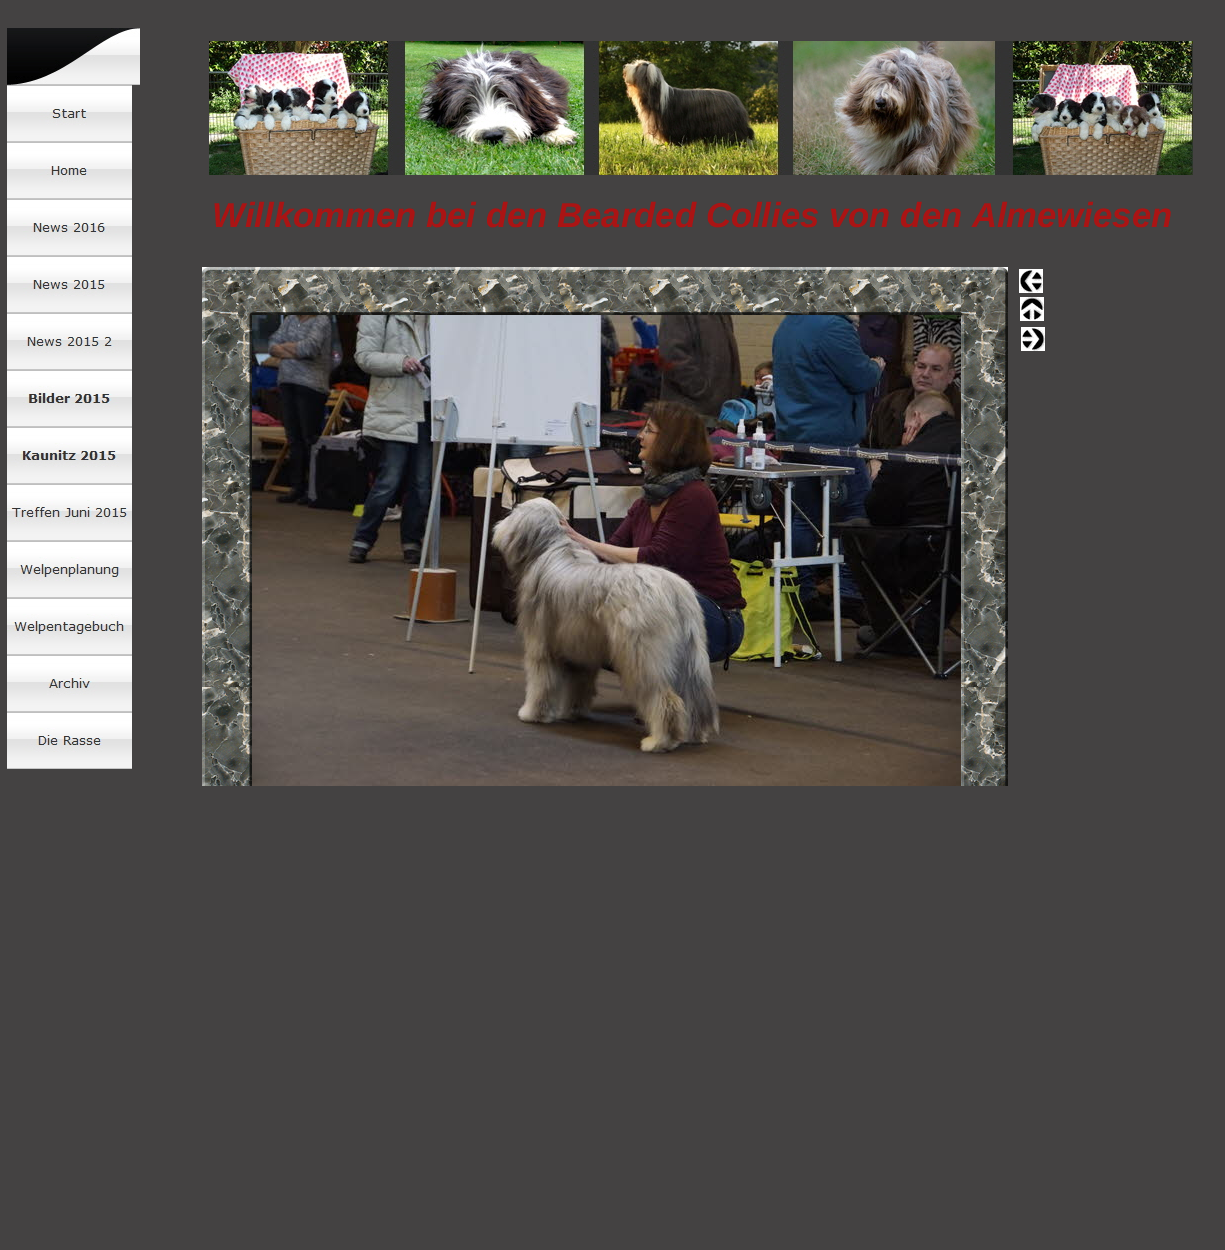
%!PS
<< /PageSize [1225 1250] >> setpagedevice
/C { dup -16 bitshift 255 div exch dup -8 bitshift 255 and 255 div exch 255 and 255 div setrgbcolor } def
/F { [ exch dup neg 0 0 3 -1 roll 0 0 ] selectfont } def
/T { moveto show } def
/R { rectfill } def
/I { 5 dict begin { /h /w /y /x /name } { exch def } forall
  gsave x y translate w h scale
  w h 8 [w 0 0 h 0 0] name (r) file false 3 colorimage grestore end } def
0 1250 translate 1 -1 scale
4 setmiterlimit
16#444242 C
0 0 1225 1250 R
(1.rgb) 7 28 133 57 I
(2.rgb) 7 85 125 57 I
(3.rgb) 7 142 125 57 I
(4.rgb) 7 199 125 57 I
(5.rgb) 7 256 125 57 I
(6.rgb) 7 313 125 57 I
(7.rgb) 7 370 125 57 I
(8.rgb) 7 427 125 57 I
(9.rgb) 7 484 125 57 I
(10.rgb) 7 541 125 57 I
(11.rgb) 7 598 125 57 I
(12.rgb) 7 655 125 57 I
(13.rgb) 7 712 125 57 I
(14.rgb) 209 41 984 134 I
/LiberationSans-BoldItalic 34.7 F
16#AA1414 C
(Willkommen bei den Bearded Collies von den Almewiesen) 212 227 T
(15.rgb) 202 267 50 48 I
(16.rgb) 252 267 709 48 I
(17.rgb) 961 267 47 48 I
(18.rgb) 202 315 50 471 I
(19.rgb) 252 315 709 471 I
(20.rgb) 961 315 47 471 I
(21.rgb) 1019 269 24 24 I
(22.rgb) 1020 297 24 24 I
(23.rgb) 1021 327 24 24 I
showpage
